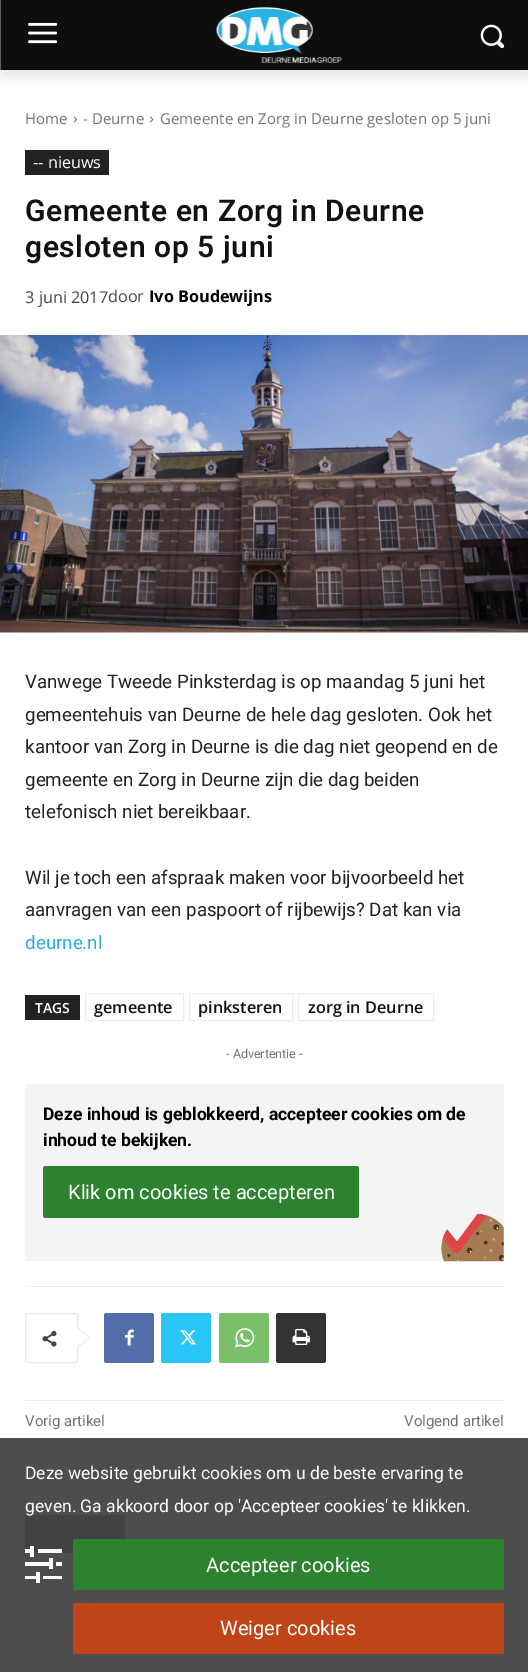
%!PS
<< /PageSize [528 1672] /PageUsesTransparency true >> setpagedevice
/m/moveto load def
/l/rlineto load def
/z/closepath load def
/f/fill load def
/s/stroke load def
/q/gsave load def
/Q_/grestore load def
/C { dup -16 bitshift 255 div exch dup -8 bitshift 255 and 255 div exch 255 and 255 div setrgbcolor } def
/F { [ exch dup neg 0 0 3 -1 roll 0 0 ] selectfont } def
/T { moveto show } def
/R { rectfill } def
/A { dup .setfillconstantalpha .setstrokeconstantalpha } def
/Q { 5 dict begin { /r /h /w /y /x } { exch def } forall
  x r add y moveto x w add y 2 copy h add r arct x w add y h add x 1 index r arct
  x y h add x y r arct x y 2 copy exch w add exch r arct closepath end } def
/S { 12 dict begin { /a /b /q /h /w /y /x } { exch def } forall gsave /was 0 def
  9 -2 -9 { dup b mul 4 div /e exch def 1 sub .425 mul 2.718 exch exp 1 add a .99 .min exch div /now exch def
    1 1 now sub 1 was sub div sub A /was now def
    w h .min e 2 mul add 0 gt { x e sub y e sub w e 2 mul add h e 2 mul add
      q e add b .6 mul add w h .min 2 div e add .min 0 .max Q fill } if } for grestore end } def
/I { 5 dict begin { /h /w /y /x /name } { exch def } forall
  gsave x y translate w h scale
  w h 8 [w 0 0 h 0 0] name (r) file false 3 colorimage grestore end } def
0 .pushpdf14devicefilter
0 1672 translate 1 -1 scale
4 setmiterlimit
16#FFFFFF C
0 0 528 1672 R
16#4D4D4D C
0 1438 528 234 R
16#222222 C
1 0 527 70 R
q
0 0 m 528 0 l 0 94 l -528 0 l z 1 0 m 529 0 l 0 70 l -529 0 l z eoclip newpath
16#000000 C
1 8 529 70 0 5 .08 S
Q_
0.6 A
16#000000 C
0 0 528 70 R
1 A
(1.rgb) 28 22 30 22 I
(2.rgb) 215 7 127 56 I
(3.rgb) 480 24 25 25 I
/OpenSans-Regular 15 F
16#747474 C
(Home) 25 124 T
(4.rgb) 73 116 5 7 I
(- Deurne) 83 124 T
(5.rgb) 150 116 4 7 I
(Gemeente en Zorg in Deurne gesloten op 5 juni) 160 124 T
16#222222 C
25 150 84 25 R
/OpenSans-Regular 16.25 F
16#FFFFFF C
(-- nieuws) 33 168 T
/Roboto-SemiBold 30 F
16#111111 C
25 221 m .6 0 (Gemeente en Zorg in Deurne) ashow
25 257 m .6 0 (gesloten op 5 juni) ashow
/OpenSans-Regular 16.25 F
16#444444 C
(3 juni 2017) 25 303 T
(door) 108 302 T
/OpenSans-Bold 16.25 F
16#000000 C
(Ivo Boudewijns) 149 302 T
(6.rgb) 0 335 528 298 I
/Roboto-Regular 18.75 F
16#222222 C
(Vanwege Tweede Pinksterdag is op maandag 5 juni het) 25 688 T
(gemeentehuis van Deurne de hele dag gesloten. Ook het) 25 721 T
(kantoor van Zorg in Deurne is die dag niet geopend en de) 25 753 T
(gemeente en Zorg in Deurne zijn die dag beiden) 25 786 T
(telefonisch niet bereikbaar.) 25 818 T
(Wil je toch een afspraak maken voor bijvoorbeeld het) 25 884 T
(aanvragen van een paspoort of rijbewijs? Dat kan via) 25 916 T
16#2EAADC C
(deurne.nl) 25 949 T
16#222222 C
25 995 55 25 R
/OpenSans-SemiBold 14 F
16#FFFFFF C
(TAGS) 35 1013 T
16#EDEDED C
85.5 993.5 98 27 rectstroke
/OpenSans-SemiBold 16.25 F
16#111111 C
(gemeente) 94 1013 T
16#EDEDED C
189.5 993.5 103 27 rectstroke
16#111111 C
(pinksteren) 198 1013 T
16#EDEDED C
298.5 993.5 135 27 rectstroke
16#111111 C
(zorg in Deurne) 308 1013 T
/Roboto-Regular 12.5 F
16#747474 C
(- Advertentie -) 226 1058 T
16#F4F4F4 C
25 1084 479 177 R
/Roboto-Bold 17.5 F
16#000000 C
(Deze inhoud is geblokkeerd, accepteer cookies om de) 43 1120 T
(inhoud te bekijken.) 43 1146 T
16#2C822E C
43 1166 316 52 2.5 Q f
/Roboto-Regular 20 F
16#FFFFFF C
(Klik om cookies te accepteren) 68 1199 T
(7.rgb) 441 1213 63 49 I
16#EBEBEB C
25 1286 479 1 R
16#E9E9E9 C
25.5 1313.5 52 49 2 Q s
76 1349 m 0 -23 l 14 11.5 l z f
(8.rgb) 42 1330 15 17 I
16#FFFFFF C
76 1347.5 m 0 -20 l 13 10 l z f
16#516EAB C
104 1313 50 50 2.5 Q f
(9.rgb) 125 1329 9 17 I
16#29C5F6 C
161 1313 50 50 2.5 Q f
(10.rgb) 180 1330 16 15 I
16#7BBF6A C
219 1313 50 50 2.5 Q f
(11.rgb) 235 1328 20 20 I
16#333333 C
276 1313 50 50 2.5 Q f
(12.rgb) 292 1328 18 17 I
16#EBEBEB C
25 1400 479 1 R
/Roboto-Regular 15 F
16#747474 C
(Vorig artikel) 25 1426 T
(Volgend artikel) 404 1426 T
16#424242 C
34 1550 39 3 R
25 1515 100 35 R
16#484B4D C
25.5 1596.5 30 32 rectstroke
(13.rgb) 38 1607 6 9 I
65.5 1596.5 30 32 rectstroke
/Roboto-Regular 17.5 F
16#FFFFFF C
(Deze website gebruikt) 25 1479 T
16#F4F4F4 C
(cookies) 201 1479 T
16#FFFFFF C
(om u de beste ervaring te) 266 1479 T
(geven. Ga akkoord door op 'Accepteer cookies' te klikken.) 25 1512 T
(14.rgb) 25 1546 37 37 I
16#2C822E C
73 1539 431 51 2.5 Q f
/Roboto-Regular 20 F
16#FFFFFF C
(Accepteer cookies) 206 1572 T
16#BF4417 C
73 1603 431 51 2.5 Q f
16#FFFFFF C
(Weiger cookies) 220 1635 T
.poppdf14devicefilter showpage
